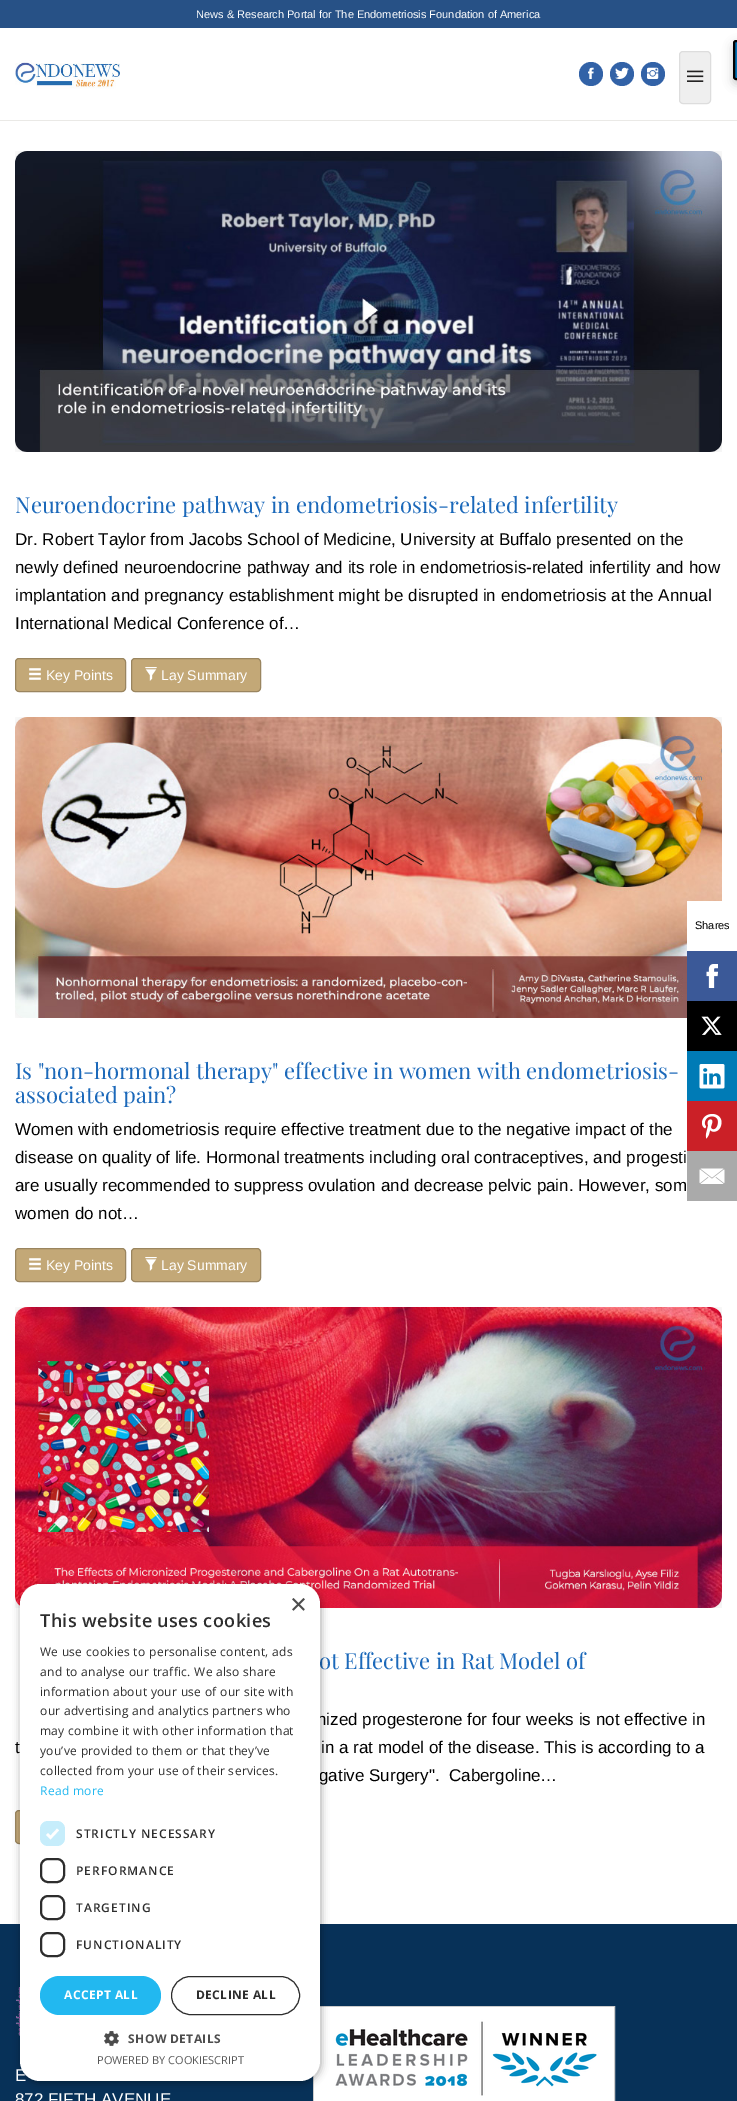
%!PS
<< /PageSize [737 2101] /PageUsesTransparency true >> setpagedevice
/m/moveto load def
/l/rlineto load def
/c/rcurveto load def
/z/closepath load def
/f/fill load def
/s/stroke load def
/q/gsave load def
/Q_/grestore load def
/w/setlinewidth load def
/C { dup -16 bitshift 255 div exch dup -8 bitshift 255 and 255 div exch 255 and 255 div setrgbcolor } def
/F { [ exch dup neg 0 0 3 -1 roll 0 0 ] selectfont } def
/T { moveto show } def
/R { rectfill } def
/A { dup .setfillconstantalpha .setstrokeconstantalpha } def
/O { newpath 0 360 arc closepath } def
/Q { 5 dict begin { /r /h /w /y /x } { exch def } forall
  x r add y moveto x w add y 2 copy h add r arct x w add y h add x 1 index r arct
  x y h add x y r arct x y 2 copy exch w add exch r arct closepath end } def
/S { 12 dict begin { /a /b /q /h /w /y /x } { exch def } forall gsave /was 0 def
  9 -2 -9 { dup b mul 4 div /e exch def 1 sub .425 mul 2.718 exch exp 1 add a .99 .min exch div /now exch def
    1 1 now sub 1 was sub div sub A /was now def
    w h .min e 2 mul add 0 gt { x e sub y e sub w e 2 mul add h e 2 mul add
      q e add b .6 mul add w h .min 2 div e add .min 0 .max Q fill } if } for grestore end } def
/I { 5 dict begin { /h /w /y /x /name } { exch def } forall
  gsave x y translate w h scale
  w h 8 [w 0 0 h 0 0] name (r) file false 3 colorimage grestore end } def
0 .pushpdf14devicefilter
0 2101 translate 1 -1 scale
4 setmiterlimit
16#FFFFFF C
0 0 737 2101 R
16#275186 C
0 0 737 28 R
/LiberationSans-Regular 11 F
16#FFFFFF C
(News & Research Portal for The Endometriosis Foundation of America) 196 18 T
16#000000 C
733 44 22 40 3 5 .2 S
16#0073B7 C
736 41 m 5 0 l 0 38 l -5 0 l -1 0 -2 -1 -2 -2 c 0 -34 l 0 -1 1 -2 2 -2 c z q f Q_
16#000000 C
2 w
s
16#EAE9E6 C
0 120 737 1 R
(1.rgb) 15 60 105 29 I
16#3262A7 C
591 74 12 O f
(2.rgb) 588 67 6 12 I
622 74 12 O f
(3.rgb) 615 67 14 12 I
653 74 12 O f
(4.rgb) 647 67 12 12 I
16#EFEFEF C
679.5 51.5 31 52 3.5 Q q f Q_
16#DDDDDD C
1 w
s
(5.rgb) 687 70 17 12 I
q
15 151 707 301 rectclip
16#DEDEDE C
16 152 707 301 12 10 1 S
Q_
(6.rgb) 15 151 707 301 I
/PlayfairDisplay-Regular 22 F
16#1C69BA C
(Neuroendocrine pathway in endometriosis-related infertility) 15 513 T
/LiberationSans-Regular 17 F
16#000000 C
(Dr. Robert Taylor from Jacobs School of Medicine, University at Buffalo presented on the) 15 545 T
(newly defined neuroendocrine pathway and its role in endometriosis-related infertility and how) 15 573 T
(implantation and pregnancy establishment might be disrupted in endometriosis at the Annual) 15 601 T
(International Medical Conference of…) 15 629 T
16#C3A877 C
15.5 658.5 110 33 3.5 Q q f Q_
16#9A855F C
s
(7.rgb) 29 668 12 12 I
/LiberationSans-Regular 14 F
16#FFFFFF C
(Key Points) 46 680 T
16#C3A877 C
131.5 658.5 129 33 3.5 Q q f Q_
16#9A855F C
s
(8.rgb) 145 667 12 14 I
16#FFFFFF C
(Lay Summary) 161 680 T
q
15 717 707 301 rectclip
16#DEDEDE C
16 718 707 301 12 10 1 S
Q_
(9.rgb) 15 717 707 301 I
/PlayfairDisplay-Regular 22 F
16#1C69BA C
(Is "non-hormonal therapy" effective in women with endometriosis-) 15 1079 T
(associated pain?) 15 1103 T
/LiberationSans-Regular 17 F
16#000000 C
(Women with endometriosis require effective treatment due to the negative impact of the) 15 1135 T
(disease on quality of life. Hormonal treatments including oral contraceptives, and progesti) 15 1163 T
(are usually recommended to suppress ovulation and decrease pelvic pain. However, som) 15 1191 T
(women do not…) 15 1219 T
16#C3A877 C
15.5 1248.5 110 33 3.5 Q q f Q_
16#9A855F C
s
(7.rgb) 29 1258 12 12 I
/LiberationSans-Regular 14 F
16#FFFFFF C
(Key Points) 46 1270 T
16#C3A877 C
131.5 1248.5 129 33 3.5 Q q f Q_
16#9A855F C
s
(8.rgb) 145 1257 12 14 I
16#FFFFFF C
(Lay Summary) 161 1270 T
q
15 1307 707 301 rectclip
16#DEDEDE C
16 1308 707 301 12 10 1 S
Q_
(10.rgb) 15 1307 707 301 I
/PlayfairDisplay-Regular 22 F
16#1C69BA C
(ot Effective in Rat Model of) 319 1669 T
/LiberationSans-Regular 17 F
16#000000 C
(nized progesterone for four weeks is not effective in) 317 1725 T
(t) 15 1753 T
(in a rat model of the disease. This is according to a) 321 1753 T
(gative Surgery".  Cabergoline…) 319 1781 T
16#C3A877 C
15.5 1810.5 110 33 3.5 Q q f Q_
16#9A855F C
s
16#FFFFFF C
687 901 35 50 R
/LiberationSans-Regular 11 F
16#000000 C
(Shares) 695 929 T
16#3B5998 C
687 951 50 50 R
(11.rgb) 706 964 12 24 I
16#000000 C
687 1001 50 50 R
(12.rgb) 701 1016 21 19 I
16#007BB6 C
687 1051 50 50 R
(13.rgb) 699 1064 26 25 I
16#CB2027 C
687 1101 50 50 R
(14.rgb) 702 1114 20 25 I
16#AAAAAA C
687 1151 50 50 R
(15.rgb) 699 1168 26 16 I
16#073158 C
0 1924 737 177 R
(17.rgb) 16 1987 4 49 I
16#CCCCCC C
313.5 2006.5 301 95 rectstroke
(18.rgb) 314 2007 300 94 I
16#000000 C
21 1586 300 497 20 4 .35 S
16#FFFFFF C
20 1584 300 497 20 Q f
/LiberationSans-Regular 29 F
16#4D4D4D C
(×) 290 1614 T
/OpenSans-SemiBold 18 F
16#2D2D2D C
40 1627 m .4 0 (This website uses cookies) ashow
/OpenSans-Regular 12 F
40 1656 m .3 0 (We use cookies to personalise content, ads) ashow
40 1676 m .3 0 (and to analyse our traffic. We also share) ashow
40 1696 m .3 0 (information about your use of our site with) ashow
40 1715 m .3 0 (our advertising and analytics partners who) ashow
40 1735 m .3 0 (may combine it with other information that) ashow
40 1755 m .3 0 (you’ve provided to them or that they’ve) ashow
40 1775 m .3 0 (collected from your use of their services.) ashow
16#22B8F0 C
40 1795 m .3 0 (Read more) ashow
16#C6EDFB C
40 1821 25 25 8 Q f
16#FFFFFF C
2.6 w
47 1834 m 3.5 3.5 l 7.5 -8 l s
/OpenSans-SemiBold 12 F
16#2D2D2D C
76 1838 m 1 0 (STRICTLY NECESSARY) ashow
2 w
41 1859 23 23 7 Q s
76 1875 m 1 0 (PERFORMANCE) ashow
41 1896 23 23 7 Q s
76 1912 m 1 0 (TARGETING) ashow
41 1933 23 23 7 Q s
76 1949 m 1 0 (FUNCTIONALITY) ashow
16#22B8F0 C
40 1976 121 39 19.5 Q f
/OpenSans-Bold 12 F
16#FFFFFF C
64 1999 m .4 0 (ACCEPT ALL) ashow
16#2D2D2D C
1 w
171.5 1976.5 128 38 19 Q s
196 1999 m .4 0 (DECLINE ALL) ashow
(16.rgb) 104 2031 15 15 I
16#4D4D4D C
128 2043 m .4 0 (SHOW DETAILS) ashow
/OpenSans-Regular 11 F
16#575757 C
(POWERED BY COOKIESCRIPT) 97 2064 T
/LiberationSans-Regular 17 F
16#FFFFFF C
(E) 15 2081 T
(872 FIFTH AVENUE) 15 2105 T
.poppdf14devicefilter showpage
